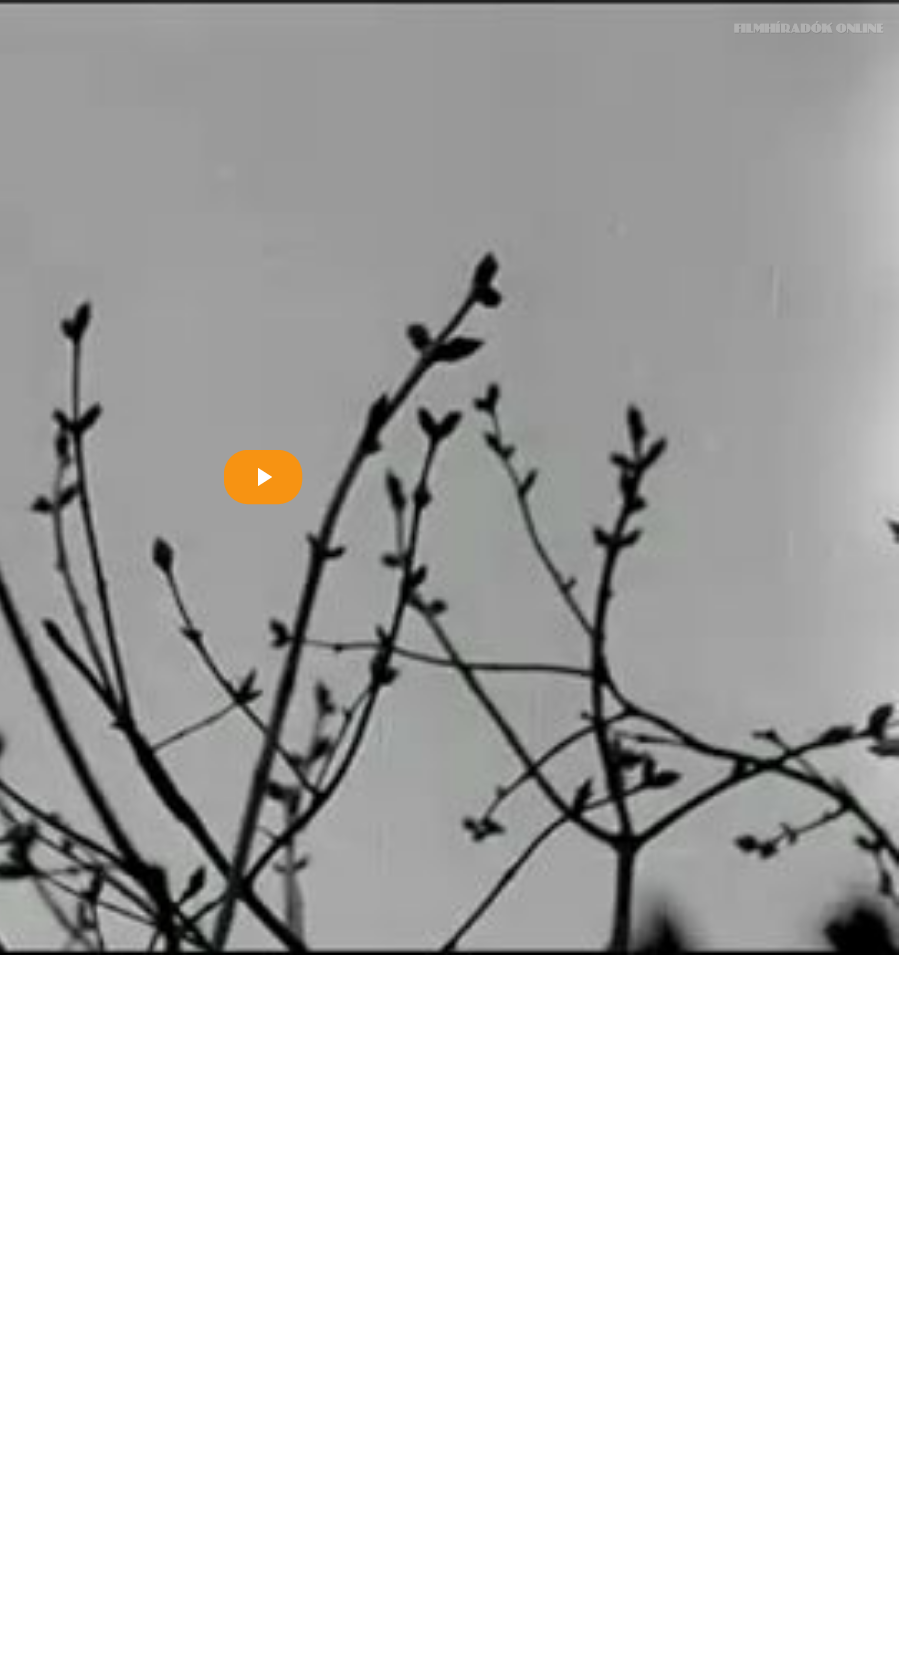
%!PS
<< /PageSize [918 1670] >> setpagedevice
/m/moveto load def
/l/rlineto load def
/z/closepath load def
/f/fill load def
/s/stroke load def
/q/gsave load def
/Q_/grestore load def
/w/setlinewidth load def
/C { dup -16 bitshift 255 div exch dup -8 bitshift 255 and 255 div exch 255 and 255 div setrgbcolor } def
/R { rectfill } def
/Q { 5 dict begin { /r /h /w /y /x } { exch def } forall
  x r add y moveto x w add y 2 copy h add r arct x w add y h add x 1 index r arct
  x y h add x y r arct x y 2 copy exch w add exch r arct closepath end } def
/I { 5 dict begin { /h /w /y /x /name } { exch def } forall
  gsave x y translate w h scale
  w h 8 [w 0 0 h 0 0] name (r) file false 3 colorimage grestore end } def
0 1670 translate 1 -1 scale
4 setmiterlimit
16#FFFFFF C
0 0 918 1670 R
(1.rgb) 0 0 899 955 I
(2.rgb) 734 21 150 13 I
16#F79312 C
226.5 452.5 73 49 21.5 Q q f Q_
5 w
s
16#FFFFFF C
258 468 m 0 18 l 14 -9 l z f
showpage
